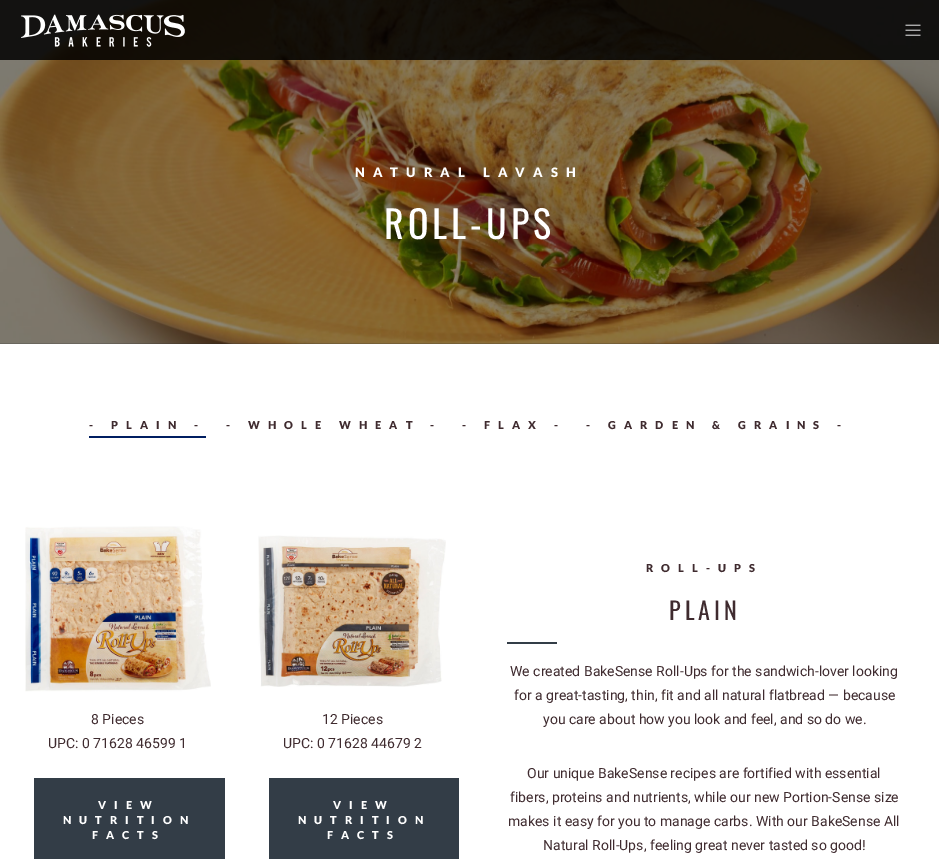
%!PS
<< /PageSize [939 859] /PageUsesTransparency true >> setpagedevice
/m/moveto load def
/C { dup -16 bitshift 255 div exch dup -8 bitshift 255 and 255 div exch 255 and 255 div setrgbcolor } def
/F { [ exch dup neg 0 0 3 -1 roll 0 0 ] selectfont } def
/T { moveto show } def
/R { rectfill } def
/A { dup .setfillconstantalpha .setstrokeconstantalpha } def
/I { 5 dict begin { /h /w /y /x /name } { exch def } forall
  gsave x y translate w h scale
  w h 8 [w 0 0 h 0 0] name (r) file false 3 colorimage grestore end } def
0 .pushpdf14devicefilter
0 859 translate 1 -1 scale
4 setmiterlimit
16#FFFFFF C
0 0 939 859 R
(3.rgb) 0 0 939 344 I
0.85 A
16#000000 C
0 0 939 60 R
1 A
(1.rgb) 21 14 164 33 I
(2.rgb) 905 24 16 12 I
/Lato-Black 13 F
16#FFFFFF C
355 177 m 8 0 (NATURAL LAVASH) ashow
/Oswald-Regular 38 F
384 239 m 4 0 (ROLL-UPS) ashow
/Lato-Black 11 F
16#3F2B2F C
89 429 m 8 0 (- PLAIN -) ashow
16#001E61 C
89 436 117 2 R
16#3F2B2F C
226 429 m 8 0 (- WHOLE WHEAT -) ashow
462 429 m 8 0 (- FLAX -) ashow
586 429 m 8 0 (- GARDEN & GRAINS -) ashow
(4.rgb) 25 526 186 166 I
/Roboto-Regular 14 F
(8 Pieces) 91 724 T
(UPC: 0 71628 46599 1) 48 748 T
16#333D47 C
34 778 191 81 R
/Lato-Black 11 F
16#FFFFFF C
98 809 m 8 0 (VIEW) ashow
63 824 m 8 0 (NUTRITION) ashow
92 839 m 8 0 (FACTS) ashow
(5.rgb) 258 535 188 152 I
/Roboto-Regular 14 F
16#3F2B2F C
(12 Pieces) 322 724 T
(UPC: 0 71628 44679 2) 283 748 T
16#333D47 C
269 778 190 81 R
/Lato-Black 11 F
16#FFFFFF C
333 809 m 8 0 (VIEW) ashow
298 824 m 8 0 (NUTRITION) ashow
327 839 m 8 0 (FACTS) ashow
16#3F2B2F C
646 572 m 8 0 (ROLL-UPS) ashow
/Oswald-Regular 24 F
669 620 m 4 0 (PLAIN) ashow
16#333D47 C
507 642 50 2 R
/Roboto-Regular 14 F
16#3F2B2F C
(We created BakeSense Roll-Ups for the sandwich-lover looking) 510 676 T
(for a great-tasting, thin, fit and all natural flatbread — because) 514 700 T
(you care about how you look and feel, and so do we.) 543 724 T
(Our unique BakeSense recipes are fortified with essential) 527 778 T
(fibers, proteins and nutrients, while our new Portion-Sense size) 510 802 T
(makes it easy for you to manage carbs. With our BakeSense All) 508 826 T
(Natural Roll-Ups, feeling great never tasted so good!) 543 850 T
.poppdf14devicefilter showpage
